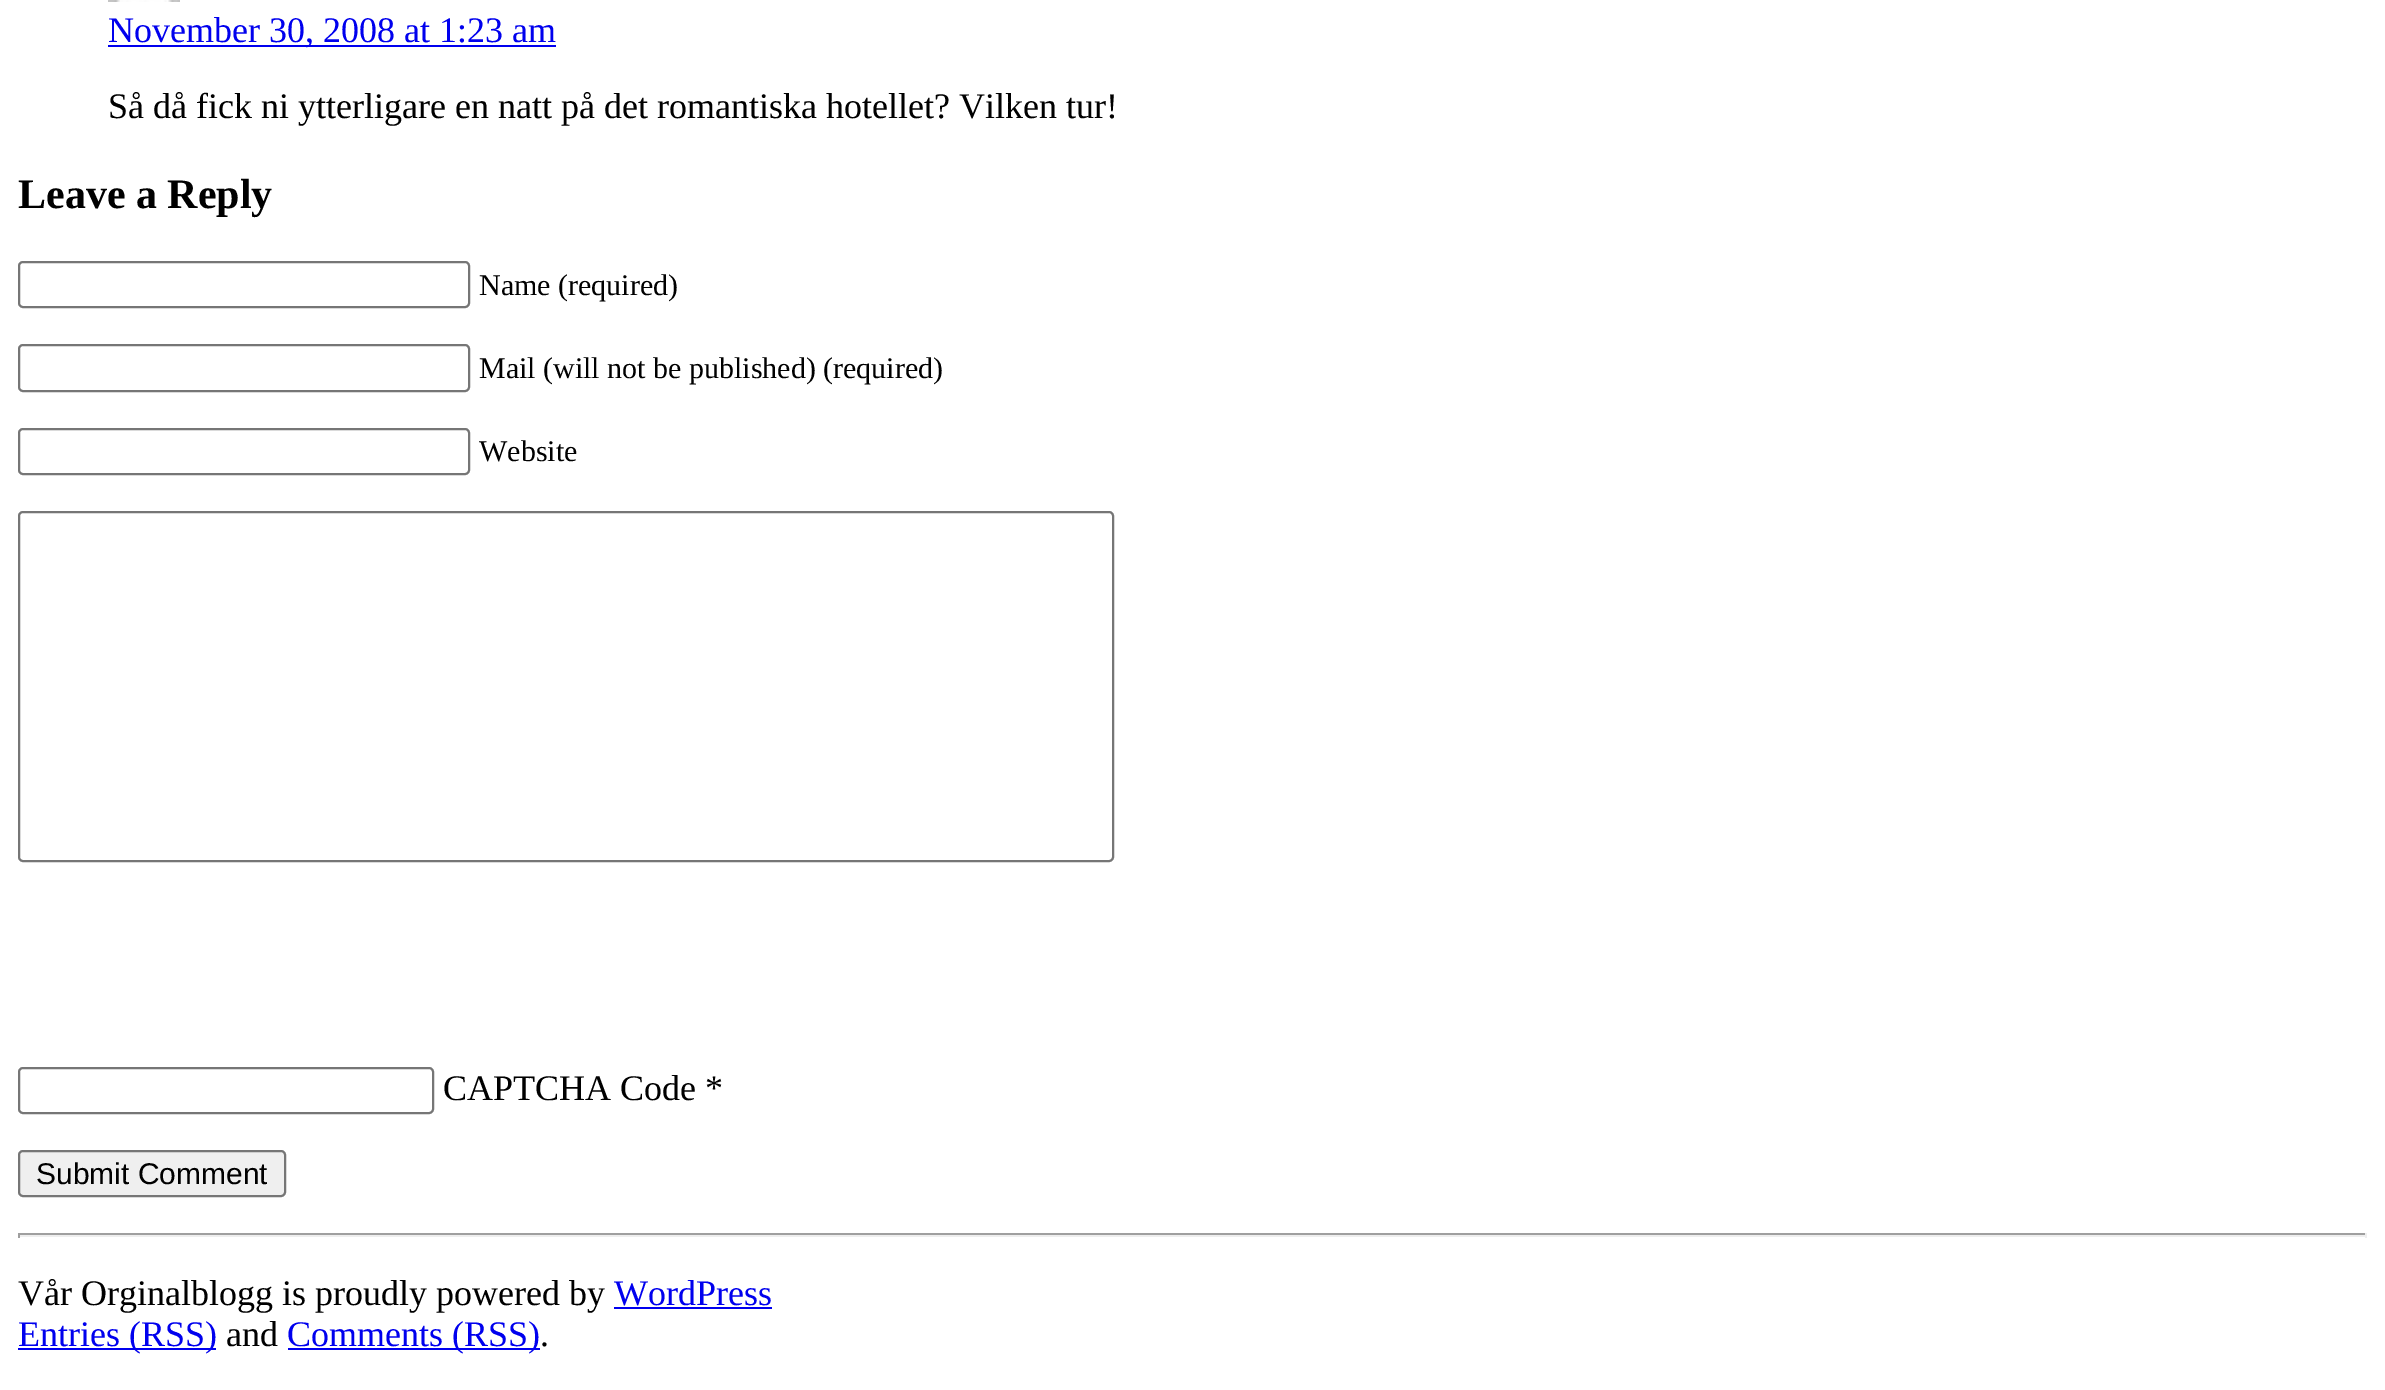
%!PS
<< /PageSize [2385 1390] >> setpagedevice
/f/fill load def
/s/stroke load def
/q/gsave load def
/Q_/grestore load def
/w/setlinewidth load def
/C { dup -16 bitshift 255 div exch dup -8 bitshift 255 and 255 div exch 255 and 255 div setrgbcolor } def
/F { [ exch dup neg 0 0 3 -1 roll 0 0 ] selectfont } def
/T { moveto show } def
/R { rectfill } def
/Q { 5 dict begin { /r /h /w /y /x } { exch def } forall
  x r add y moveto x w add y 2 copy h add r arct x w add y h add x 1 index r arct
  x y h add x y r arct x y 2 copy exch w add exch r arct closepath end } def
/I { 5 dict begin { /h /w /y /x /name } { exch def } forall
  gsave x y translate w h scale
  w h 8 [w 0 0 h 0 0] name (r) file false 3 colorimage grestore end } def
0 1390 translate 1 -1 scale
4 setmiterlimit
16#FFFFFF C
0 0 2385 1390 R
(1.rgb) 108 0 72 2 I
16#0000EE C
108 45 448 2 R
/LiberationSerif-Regular 36 F
(November 30, 2008 at 1:23 am) 108 42 T
16#000000 C
(Så då fick ni ytterligare en natt på det romantiska hotellet? Vilken tur!) 108 118 T
/LiberationSerif-Bold 42 F
(Leave a Reply) 18 208 T
16#767676 C
2 w
19 262 450 45 4 Q s
/LiberationSerif-Regular 30 F
16#000000 C
(Name \(required\)) 479 295 T
16#767676 C
19 345 450 46 4 Q s
16#000000 C
(Mail \(will not be published\) \(required\)) 479 378 T
16#767676 C
19 429 450 45 4 Q s
16#000000 C
(Website) 479 461 T
16#767676 C
19 512 1094 349 4 Q s
19 1068 414 45 4 Q s
/LiberationSerif-Regular 36 F
16#000000 C
(CAPTCHA Code *) 443 1100 T
16#EFEFEF C
19 1151 266 45 4 Q q f Q_
16#767676 C
s
/LiberationSans-Regular 30 F
16#000000 C
(Submit Comment) 36 1184 T
16#9F9F9F C
18 1233 2349 2 R
16#EEEEEE C
2365 1233 2 5 R
18 1235 2349 2 R
16#9F9F9F C
18 1233 2 5 R
/LiberationSerif-Regular 36 F
16#000000 C
(Vår Orginalblogg is proudly powered by) 18 1305 T
16#0000EE C
(WordPress) 614 1305 T
614 1307 158 2 R
18 1348 198 2 R
(Entries \(RSS\)) 18 1346 T
16#000000 C
(and) 226 1346 T
16#0000EE C
288 1348 252 2 R
(Comments \(RSS\)) 287 1346 T
16#000000 C
(.) 540 1346 T
showpage
